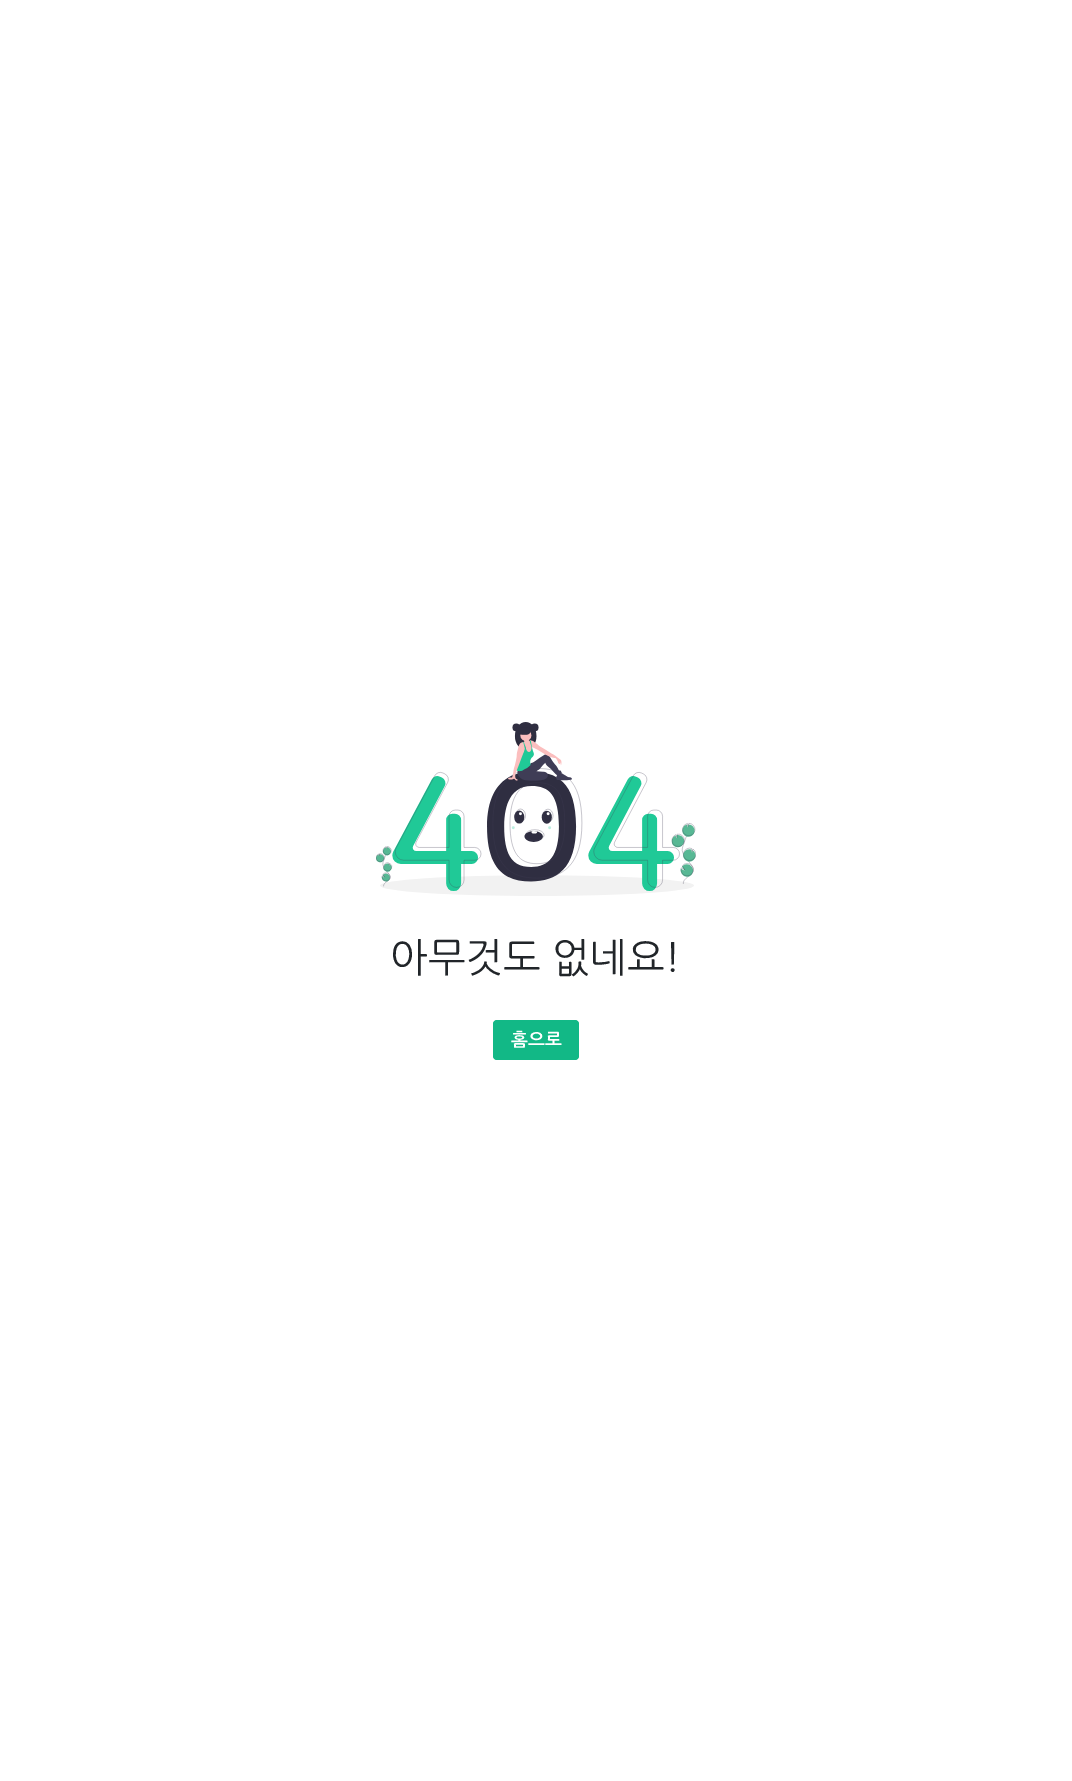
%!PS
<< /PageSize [1072 1781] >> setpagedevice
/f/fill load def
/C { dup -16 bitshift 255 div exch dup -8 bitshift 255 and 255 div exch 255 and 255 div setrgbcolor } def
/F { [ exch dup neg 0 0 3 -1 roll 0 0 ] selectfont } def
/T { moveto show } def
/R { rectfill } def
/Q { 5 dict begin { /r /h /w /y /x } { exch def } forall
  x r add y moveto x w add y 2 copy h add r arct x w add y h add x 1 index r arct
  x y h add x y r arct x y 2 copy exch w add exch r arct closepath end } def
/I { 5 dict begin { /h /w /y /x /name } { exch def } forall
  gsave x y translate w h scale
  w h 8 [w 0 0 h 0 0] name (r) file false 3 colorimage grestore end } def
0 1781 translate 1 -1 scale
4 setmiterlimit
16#FFFFFF C
0 0 1072 1781 R
(1.rgb) 376 722 320 174 I
/NanumGothic-Regular 40 F
16#212529 C
(아무것도 없네요!) 390 972 T
16#12B886 C
493 1020 86 40 4 Q f
/NanumGothic-Bold 18 F
16#FFFFFF C
(홈으로) 511 1046 T
showpage
